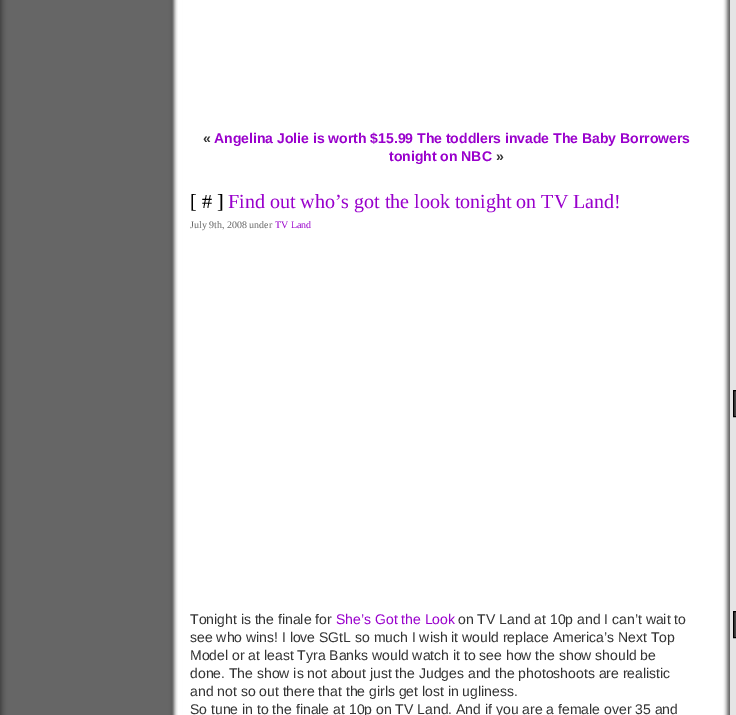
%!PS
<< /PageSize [736 715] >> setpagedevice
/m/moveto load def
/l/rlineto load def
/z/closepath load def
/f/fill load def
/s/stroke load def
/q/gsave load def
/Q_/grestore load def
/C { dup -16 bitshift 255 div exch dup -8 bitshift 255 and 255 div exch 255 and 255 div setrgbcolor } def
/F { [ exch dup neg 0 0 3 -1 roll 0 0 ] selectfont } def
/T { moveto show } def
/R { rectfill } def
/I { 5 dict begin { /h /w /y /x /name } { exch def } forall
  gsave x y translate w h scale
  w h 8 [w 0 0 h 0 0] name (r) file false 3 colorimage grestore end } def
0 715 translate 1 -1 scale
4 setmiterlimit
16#FFFFFF C
0 0 736 715 R
(1.rgb) 0 0 736 715 I
/LiberationSans-Bold 14 F
16#333333 C
(«) 203 143 T
16#9900CC C
(Angelina Jolie is worth $15.99 The toddlers invade The Baby Borrowers) 214 143 T
(tonight on NBC) 389 161 T
16#333333 C
(») 496 161 T
/LiberationSerif-Regular 20 F
16#000000 C
([ # ]) 190 208 T
16#9900CC C
(Find out who’s got the look tonight on TV Land!) 228 208 T
/LiberationSerif-Regular 10 F
16#666666 C
(July 9th, 2008 under) 190 228 T
16#9900CC C
(TV Land) 275 228 T
/LiberationSans-Regular 14 F
16#333333 C
(Tonight is the finale for) 190 624 T
16#9900CC C
(She’s Got the Look) 336 624 T
16#333333 C
(on TV Land at 10p and I can’t wait to) 458 624 T
(see who wins! I love SGtL so much I wish it would replace America’s Next Top) 190 642 T
(Model or at least Tyra Banks would watch it to see how the show should be) 190 660 T
(done. The show is not about just the Judges and the photoshoots are realistic) 190 678 T
(and not so out there that the girls get lost in ugliness.) 190 696 T
(So tune in to the finale at 10p on TV Land. And if you are a female over 35 and) 190 714 T
16#484848 C
733.5 390.5 m 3 0 l 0 26 l -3 0 l z q f Q_
16#000000 C
s
16#484848 C
733.5 611.5 m 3 0 l 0 26 l -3 0 l z q f Q_
16#000000 C
s
showpage
